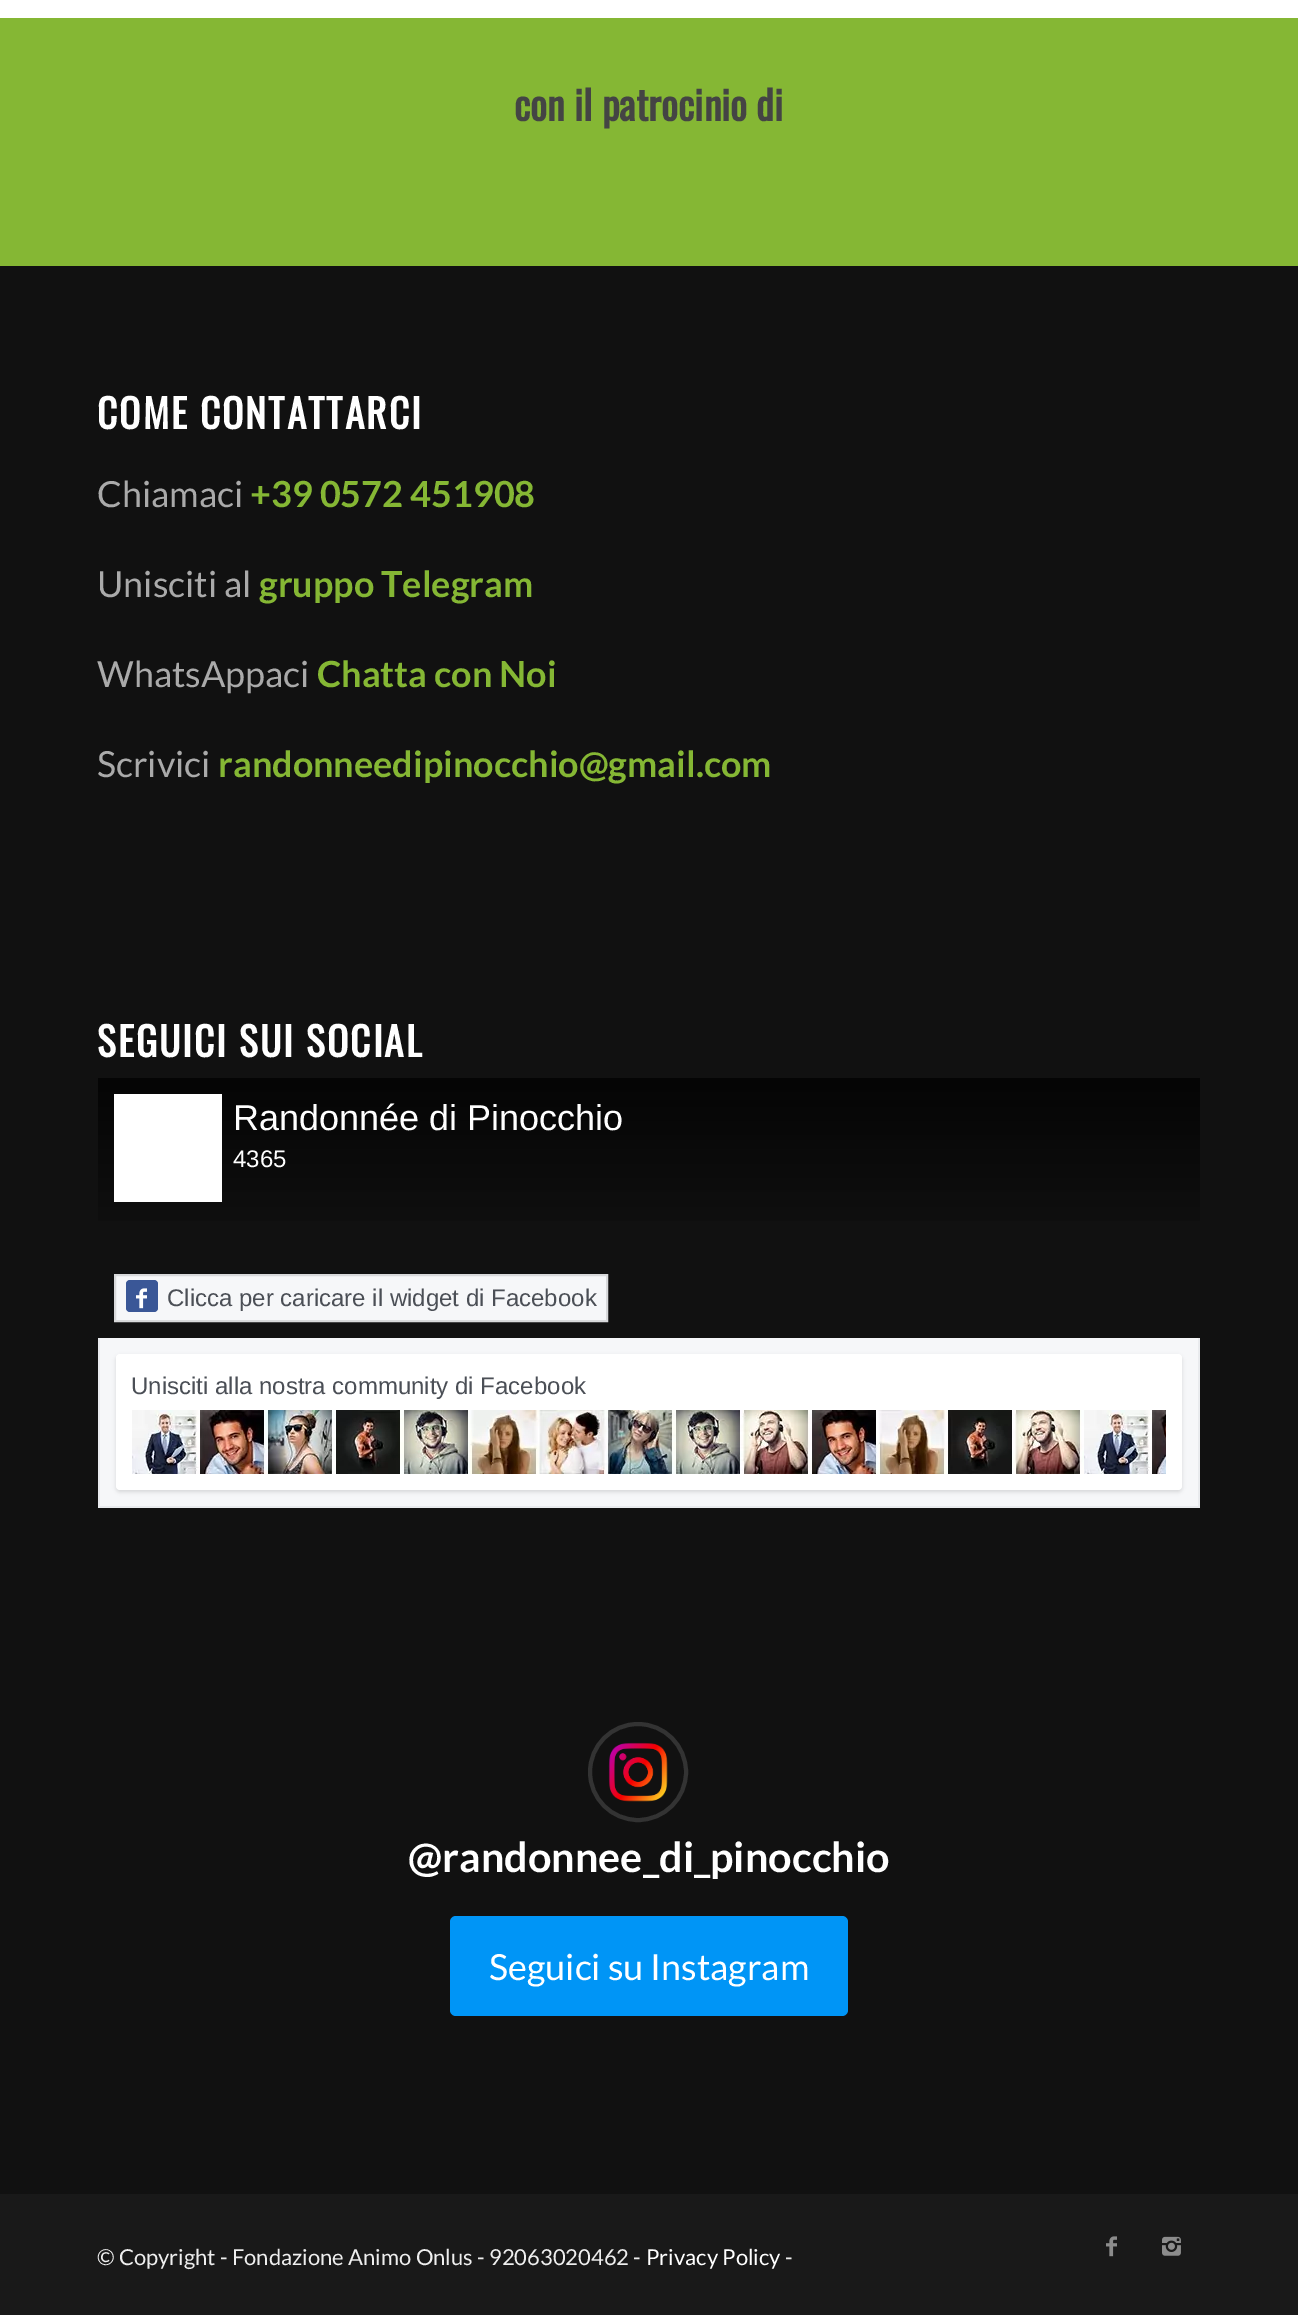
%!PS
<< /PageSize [1298 2315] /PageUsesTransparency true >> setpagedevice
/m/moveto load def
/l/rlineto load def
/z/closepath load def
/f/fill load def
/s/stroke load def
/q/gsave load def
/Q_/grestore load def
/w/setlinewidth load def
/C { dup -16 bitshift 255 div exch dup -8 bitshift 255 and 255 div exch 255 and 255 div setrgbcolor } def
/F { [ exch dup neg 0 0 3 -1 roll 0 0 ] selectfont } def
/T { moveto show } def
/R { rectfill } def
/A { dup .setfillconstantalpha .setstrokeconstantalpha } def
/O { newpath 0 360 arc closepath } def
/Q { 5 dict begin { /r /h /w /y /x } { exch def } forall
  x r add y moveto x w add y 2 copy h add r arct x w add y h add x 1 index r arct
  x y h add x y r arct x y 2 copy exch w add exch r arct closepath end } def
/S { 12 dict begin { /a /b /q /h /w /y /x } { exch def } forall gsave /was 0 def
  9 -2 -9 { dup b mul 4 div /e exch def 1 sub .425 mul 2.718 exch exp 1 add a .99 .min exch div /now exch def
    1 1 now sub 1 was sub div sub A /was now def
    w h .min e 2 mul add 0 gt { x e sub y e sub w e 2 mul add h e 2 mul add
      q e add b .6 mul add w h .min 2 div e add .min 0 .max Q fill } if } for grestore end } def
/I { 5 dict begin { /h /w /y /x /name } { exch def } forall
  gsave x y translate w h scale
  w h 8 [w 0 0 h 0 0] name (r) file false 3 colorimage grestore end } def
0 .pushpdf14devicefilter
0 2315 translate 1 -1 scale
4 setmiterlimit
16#FFFFFF C
0 0 1298 2315 R
16#85B734 C
0 18 1298 248 R
/Oswald-Bold 40 F
16#444444 C
(con il patrocinio di) 514 121 T
16#111111 C
0 266 1298 1928 R
/Oswald-Bold 39.5 F
16#FFFFFF C
97 429 m 2 0 (COME CONTATTARCI) ashow
/Lato-Regular 36 F
16#AAAAAA C
(Chiamaci) 97 507 T
/Lato-Bold 36 F
16#85B734 C
(+39 0572 451908) 250 507 T
/Lato-Regular 36 F
16#AAAAAA C
(Unisciti al) 97 597 T
/Lato-Bold 36 F
16#85B734 C
(gruppo Telegram) 259 597 T
/Lato-Regular 36 F
16#AAAAAA C
(WhatsAppaci) 97 687 T
/Lato-Bold 36 F
16#85B734 C
(Chatta con Noi) 317 687 T
/Lato-Regular 36 F
16#AAAAAA C
(Scrivici) 97 777 T
/Lato-Bold 36 F
16#85B734 C
(randonneedipinocchio@gmail.com) 218 777 T
/Oswald-Bold 39.5 F
16#FFFFFF C
97 1057 m 2 0 (SEGUICI SUI SOCIAL) ashow
q 98 1078 m 1102 0 l 0 143 l -1102 0 l z clip newpath
<< /ShadingType 2 /ColorSpace /DeviceRGB /Coords [649 1078 649 1258] /Extend [true true] /Function << /FunctionType 2 /Domain [0 1] /C0 [.02 .02 .02] /C1 [.067 .067 .067] /N 1 >> >> shfill Q_
114 1094 108 108 R
/LiberationSans-Regular 36 F
(Randonnée di Pinocchio) 233 1130 T
/LiberationSans-Regular 24 F
(4365) 233 1167 T
16#F6F7F9 C
115 1275 m 492 0 l 0 46 l -492 0 l z q f Q_
16#D8D9DB C
2 w
s
16#3A5797 C
126 1280 32 32 4 Q f
(1.rgb) 136 1288 11 21 I
16#4B4F56 C
(Clicca per caricare il widget di Facebook) 167 1306 T
16#F6F7F9 C
100 1338 1098 168 R
16#E9EBEE C
1198 1338 2 170 R
98 1506 1102 2 R
98 1338 2 170 R
16#000000 C
116 1356 1066 136 4 2 .12 S
16#FFFFFF C
116 1354 1066 136 4 Q f
16#4B4F56 C
(Unisciti alla nostra community di Facebook) 131 1394 T
(2.rgb) 132 1410 1034 64 I
16#333333 C
4 w
638 1772 48 O s
(3.rgb) 608 1742 60 60 I
/Lato-Bold 41.4 F
16#FFFFFF C
(@randonnee_di_pinocchio) 408 1872 T
16#0095F6 C
450 1916 398 100 6 Q f
/Lato-Regular 36 F
16#FFFFFF C
(Seguici su Instagram) 489 1980 T
16#191919 C
0 2194 1298 121 R
/Lato-Regular 22 F
16#EEEEEE C
(© Copyright - Fondazione Animo Onlus - 92063020462 -) 97 2265 T
16#FFFFFF C
(Privacy Policy) 646 2265 T
16#EEEEEE C
(-) 785 2265 T
(4.rgb) 1106 2236 11 21 I
(5.rgb) 1162 2236 19 20 I
.poppdf14devicefilter showpage
